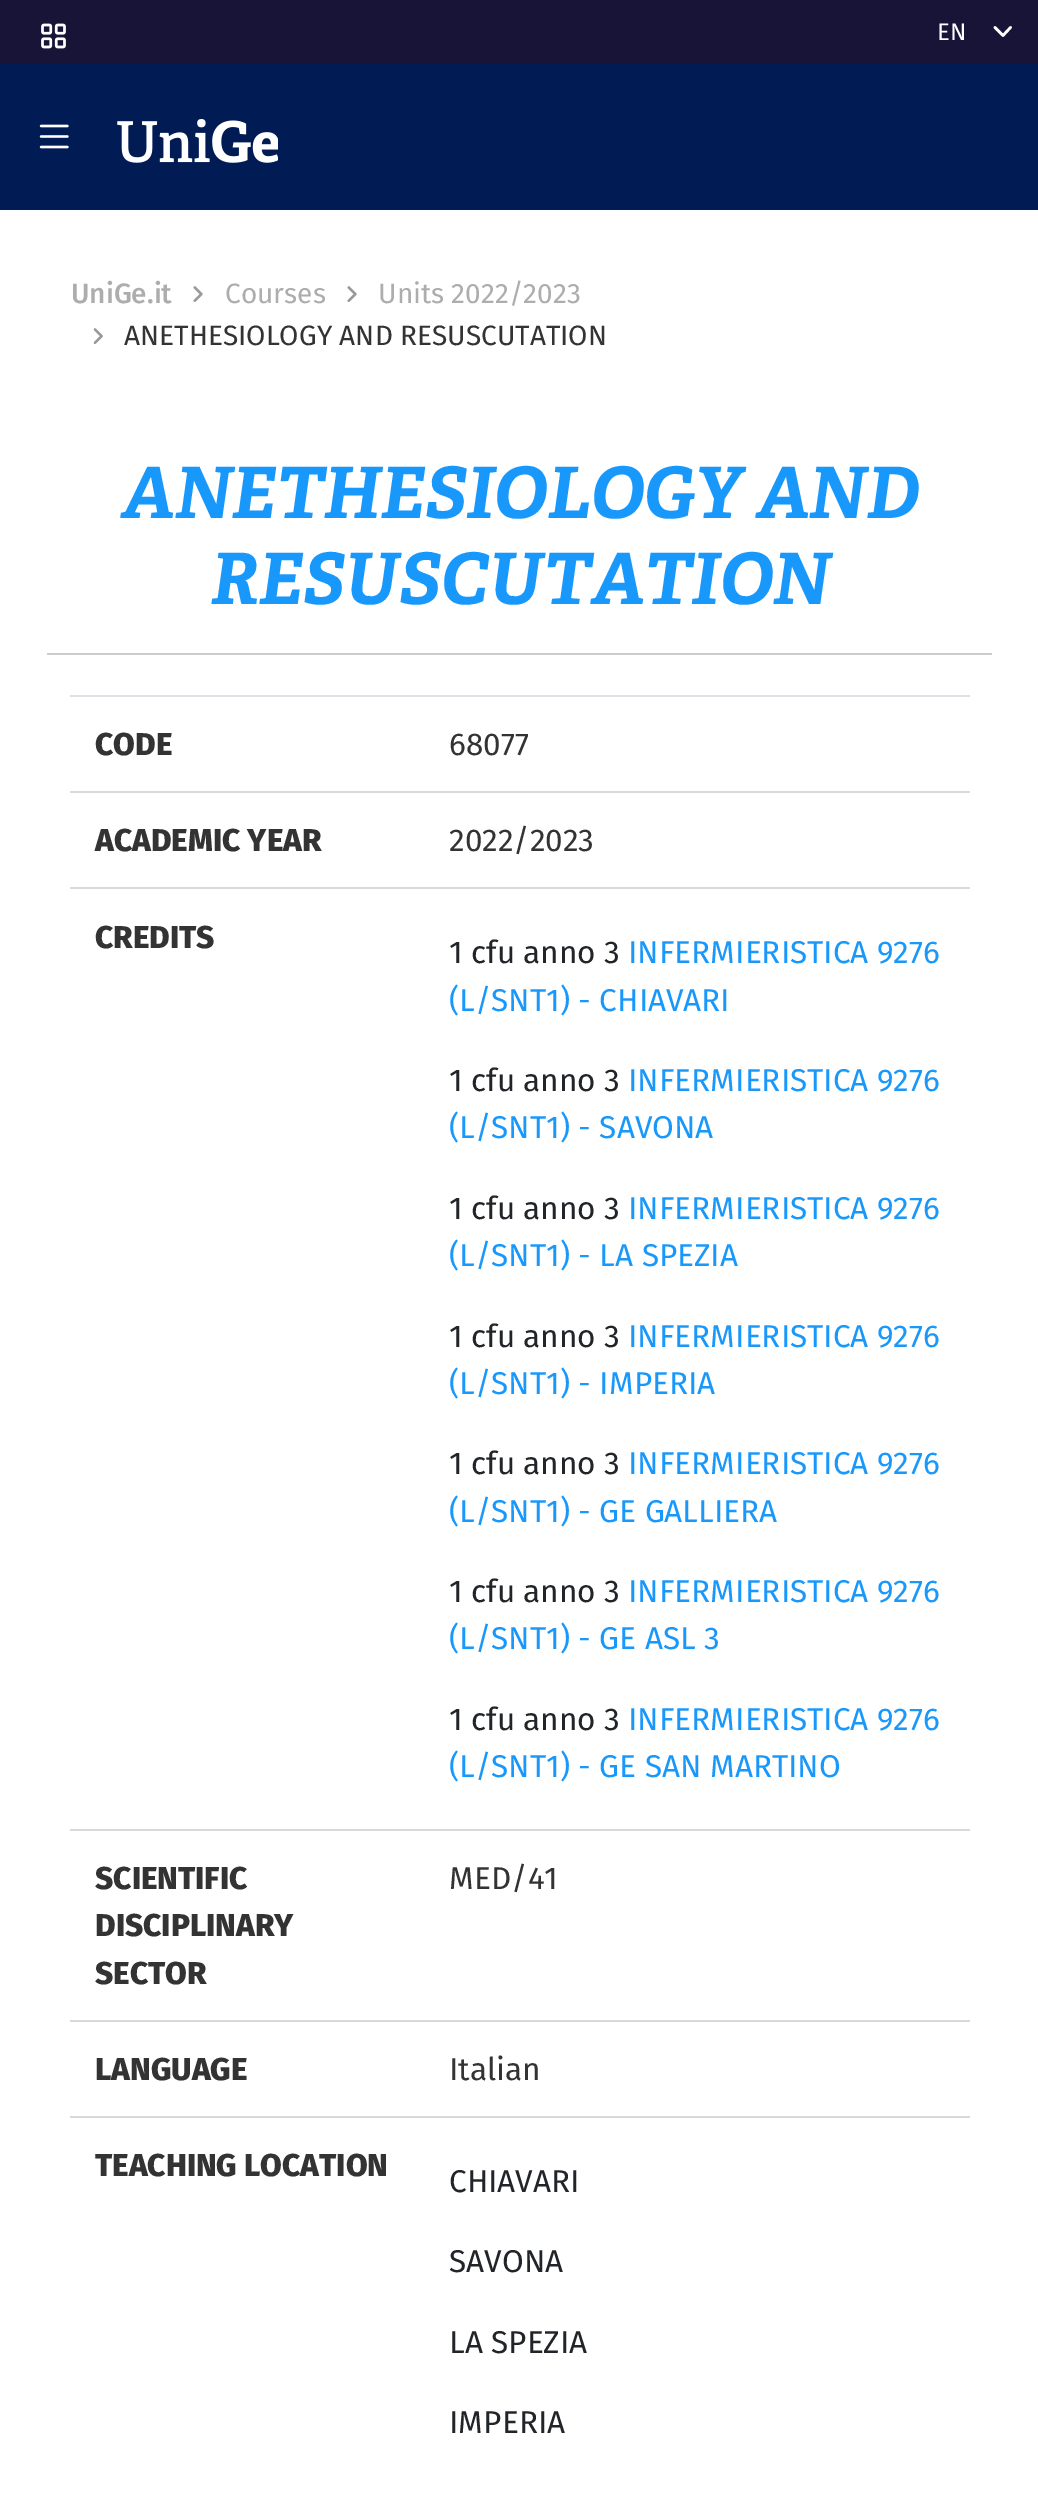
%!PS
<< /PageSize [1038 2503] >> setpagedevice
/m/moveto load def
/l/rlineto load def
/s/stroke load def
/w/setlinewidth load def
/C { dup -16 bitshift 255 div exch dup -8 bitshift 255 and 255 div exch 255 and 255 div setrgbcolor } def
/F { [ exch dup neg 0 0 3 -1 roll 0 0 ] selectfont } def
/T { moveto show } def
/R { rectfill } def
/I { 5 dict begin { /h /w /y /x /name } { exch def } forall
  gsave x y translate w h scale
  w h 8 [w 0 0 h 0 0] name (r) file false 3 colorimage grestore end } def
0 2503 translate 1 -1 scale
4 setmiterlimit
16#FFFFFF C
0 0 1038 2503 R
16#171437 C
0 0 1038 63 R
(1.rgb) 41 23 25 26 I
16#FFFFFF C
2.6 w
1 setlinecap
1 setlinejoin
995 27.5 m 8 8 l 7.5 -8 l s
/FiraSans-Regular 24 F
(EN) 937 40 T
16#011C55 C
0 63 1038 147 R
(2.rgb) 39 124 30 25 I
(3.rgb) 117 119 161 44 I
/FiraSans-Medium 28 F
16#ADADAD C
(UniGe.it) 71 303 T
(4.rgb) 193 286 10 16 I
/FiraSans-Regular 28 F
(Courses) 225 303 T
(4.rgb) 347 286 10 16 I
(Units 2022/2023) 378 303 T
(5.rgb) 93 328 10 16 I
16#333333 C
(ANETHESIOLOGY AND RESUSCUTATION) 124 345 T
16#CCCCCC C
47 653 945 2 R
/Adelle-BoldItalic 70.9 F
16#1998FC C
(ANETHESIOLOGY AND) 121 518 T
(RESUSCUTATION) 210 604 T
/FiraSans-ExtraBold 31.5 F
16#333333 C
(CODE) 95 755 T
16#DEE2E6 C
70 695 900 2 R
16#D9D9D6 C
70 791 900 2 R
/FiraSans-Regular 31.5 F
16#333333 C
(68077) 449 755 T
/FiraSans-ExtraBold 31.5 F
(ACADEMIC YEAR) 95 851 T
16#D9D9D6 C
70 887 900 2 R
/FiraSans-Regular 31.5 F
16#333333 C
(2022/2023) 449 851 T
/FiraSans-ExtraBold 31.5 F
(CREDITS) 95 948 T
16#D9D9D6 C
70 1829 900 2 R
/FiraSans-Regular 31.5 F
16#212529 C
(1 cfu anno 3) 449 963 T
16#1998FC C
(INFERMIERISTICA 9276) 628 963 T
(\(L/SNT1\) - CHIAVARI) 449 1011 T
16#212529 C
(1 cfu anno 3) 449 1091 T
16#1998FC C
(INFERMIERISTICA 9276) 628 1091 T
(\(L/SNT1\) - SAVONA) 449 1138 T
16#212529 C
(1 cfu anno 3) 449 1219 T
16#1998FC C
(INFERMIERISTICA 9276) 628 1219 T
(\(L/SNT1\) - LA SPEZIA) 449 1266 T
16#212529 C
(1 cfu anno 3) 449 1347 T
16#1998FC C
(INFERMIERISTICA 9276) 628 1347 T
(\(L/SNT1\) - IMPERIA) 449 1394 T
16#212529 C
(1 cfu anno 3) 449 1474 T
16#1998FC C
(INFERMIERISTICA 9276) 628 1474 T
(\(L/SNT1\) - GE GALLIERA) 449 1522 T
16#212529 C
(1 cfu anno 3) 449 1602 T
16#1998FC C
(INFERMIERISTICA 9276) 628 1602 T
(\(L/SNT1\) - GE ASL 3) 449 1649 T
16#212529 C
(1 cfu anno 3) 449 1730 T
16#1998FC C
(INFERMIERISTICA 9276) 628 1730 T
(\(L/SNT1\) - GE SAN MARTINO) 449 1777 T
/FiraSans-ExtraBold 31.5 F
16#333333 C
(SCIENTIFIC) 95 1889 T
(DISCIPLINARY) 95 1936 T
(SECTOR) 95 1984 T
16#D9D9D6 C
70 2020 900 2 R
/FiraSans-Regular 31.5 F
16#333333 C
(MED/41) 449 1889 T
/FiraSans-ExtraBold 31.5 F
(LANGUAGE) 95 2080 T
16#D9D9D6 C
70 2116 900 2 R
/FiraSans-Regular 31.5 F
16#333333 C
(Italian) 449 2080 T
/FiraSans-ExtraBold 31.5 F
(TEACHING LOCATION) 95 2176 T
/FiraSans-Regular 31.5 F
16#212529 C
(CHIAVARI) 449 2192 T
(SAVONA) 449 2272 T
(LA SPEZIA) 449 2353 T
(IMPERIA) 449 2433 T
showpage
